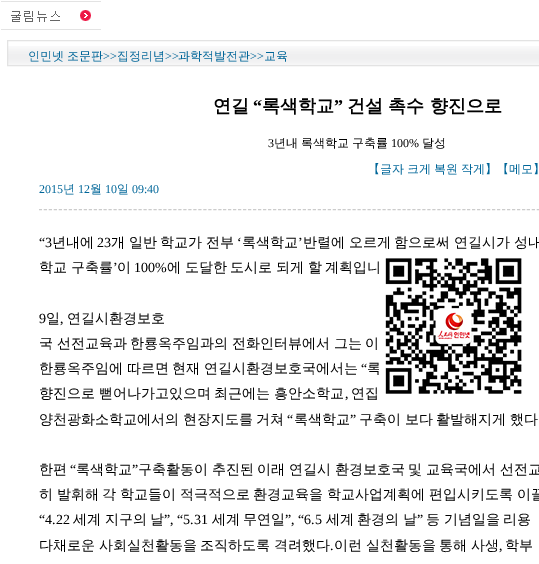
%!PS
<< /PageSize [539 564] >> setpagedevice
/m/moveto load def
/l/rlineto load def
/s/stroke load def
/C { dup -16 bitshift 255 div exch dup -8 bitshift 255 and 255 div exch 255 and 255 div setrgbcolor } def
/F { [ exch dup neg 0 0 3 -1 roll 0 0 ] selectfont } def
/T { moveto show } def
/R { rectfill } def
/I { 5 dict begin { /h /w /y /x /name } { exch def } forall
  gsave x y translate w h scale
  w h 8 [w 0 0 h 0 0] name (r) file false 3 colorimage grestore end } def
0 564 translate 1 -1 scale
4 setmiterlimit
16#FFFFFF C
0 0 539 564 R
(1.rgb) 1 1 100 29 I
(2.rgb) 8 46 531 19 I
16#E3E3E3 C
7.5 40.5 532 25 rectstroke
/WenQuanYiZenHei-Medium 12 F
16#006699 C
28 60 m -.5 0 32 (인민넷 조문판) widthshow
/LiberationSerif-Regular 12 F
(>>) 103 60 T
/WenQuanYiZenHei-Medium 12 F
(집정리념) 117 60 T
/LiberationSerif-Regular 12 F
(>>) 165 60 T
/WenQuanYiZenHei-Medium 12 F
(과학적발전관) 178 60 T
/LiberationSerif-Regular 12 F
(>>) 250 60 T
/WenQuanYiZenHei-Medium 12 F
(교육) 264 60 T
/WenQuanYiZenHei-Bold 18 F
16#000000 C
(연길) 213 112 T
/LiberationSerif-Bold 18 F
(“) 253 112 T
/WenQuanYiZenHei-Bold 18 F
(록색학교) 262 112 T
/LiberationSerif-Bold 18 F
(”) 334 112 T
/WenQuanYiZenHei-Bold 18 F
(건설 촉수 향진으로) 347 112 T
/LiberationSerif-Regular 12 F
(3) 268 147 T
/WenQuanYiZenHei-Medium 12 F
(년내) 274 147 T
(록색학교) 301 147 T
(구축률) 352 147 T
/LiberationSerif-Regular 12 F
(100%) 391 147 T
/WenQuanYiZenHei-Medium 12 F
(달성) 422 147 T
16#CCCCCC C
[3 1.98] 0 setdash
39 209.5 m 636 0 l s
16#006699 C
(【글자) 368 173 T
(크게) 407 173 T
(복원) 434 173 T
(작게】【메모】) 461 173 T
/LiberationSerif-Regular 12 F
(2015) 39 193 T
/WenQuanYiZenHei-Medium 12 F
(년) 63 193 T
/LiberationSerif-Regular 12 F
(12) 78 193 T
/WenQuanYiZenHei-Medium 12 F
(월) 90 193 T
/LiberationSerif-Regular 12 F
(10) 105 193 T
/WenQuanYiZenHei-Medium 12 F
(일) 117 193 T
/LiberationSerif-Regular 12 F
(09:40) 132 193 T
/LiberationSerif-Regular 14 F
16#000000 C
(“3) 39 247 T
/WenQuanYiZenHei-Medium 14 F
(년내에) 52 247 T
/LiberationSerif-Regular 14 F
(23) 97 247 T
/WenQuanYiZenHei-Medium 14 F
111 247 m -.5 0 32 (개 일반 학교가 전부) widthshow
/LiberationSerif-Regular 14 F
(‘) 237 247 T
/WenQuanYiZenHei-Medium 14 F
(록색학교) 242 247 T
/LiberationSerif-Regular 14 F
(’) 298 247 T
/WenQuanYiZenHei-Medium 14 F
303 247 m -.5 0 32 (반렬에 오르게 함으로써 연길시가 성내) widthshow
39 272 m -.5 0 32 (학교 구축률) widthshow
/LiberationSerif-Regular 14 F
(’) 113 272 T
/WenQuanYiZenHei-Medium 14 F
(이) 117 272 T
/LiberationSerif-Regular 14 F
(100%) 134 272 T
/WenQuanYiZenHei-Medium 14 F
167 272 m -.5 0 32 (에 도달한 도시로 되게 할 계획입니) widthshow
/LiberationSerif-Regular 14 F
(9) 39 323 T
/WenQuanYiZenHei-Medium 14 F
(일) 46 323 T
/LiberationSerif-Regular 14 F
(,) 60 323 T
/WenQuanYiZenHei-Medium 14 F
(연길시환경보호) 67 323 T
39 348 m -.5 0 32 (국 선전교육과 한룡옥주임과의 전화인터뷰에서 그는 이) widthshow
39 373 m -.5 0 32 (한룡옥주임에 따르면 현재 연길시환경보호국에서는) widthshow
/LiberationSerif-Regular 14 F
(“) 361 373 T
/WenQuanYiZenHei-Medium 14 F
(록) 367 373 T
39 398 m -.5 0 32 (향진으로 뻗어나가고있으며 최근에는 흥안소학교) widthshow
/LiberationSerif-Regular 14 F
(,) 345 398 T
/WenQuanYiZenHei-Medium 14 F
(연집) 351 398 T
39 424 m -.5 0 32 (양천광화소학교에서의 현장지도를 거쳐) widthshow
/LiberationSerif-Regular 14 F
(“) 287 424 T
/WenQuanYiZenHei-Medium 14 F
(록색학교) 294 424 T
/LiberationSerif-Regular 14 F
(”) 350 424 T
/WenQuanYiZenHei-Medium 14 F
359 424 m -.5 0 32 (구축이 보다 활발해지게 했다) widthshow
(한편) 39 474 T
/LiberationSerif-Regular 14 F
(“) 70 474 T
/WenQuanYiZenHei-Medium 14 F
(록색학교) 76 474 T
/LiberationSerif-Regular 14 F
(”) 132 474 T
/WenQuanYiZenHei-Medium 14 F
138 474 m -.5 0 32 (구축활동이 추진된 이래 연길시 환경보호국 및 교육국에서 선전교) widthshow
39 499 m -.5 0 32 (히 발휘해 각 학교들이 적극적으로 환경교육을 학교사업계획에 편입시키도록 이끌) widthshow
/LiberationSerif-Regular 14 F
(“4.22) 39 524 T
/WenQuanYiZenHei-Medium 14 F
(세계) 73 524 T
(지구의) 105 524 T
(날) 150 524 T
/LiberationSerif-Regular 14 F
(”, “5.31) 164 524 T
/WenQuanYiZenHei-Medium 14 F
(세계) 212 524 T
(무연일) 243 524 T
/LiberationSerif-Regular 14 F
(”, “6.5) 285 524 T
/WenQuanYiZenHei-Medium 14 F
(세계) 326 524 T
(환경의) 357 524 T
(날) 403 524 T
/LiberationSerif-Regular 14 F
(”) 417 524 T
/WenQuanYiZenHei-Medium 14 F
(등) 426 524 T
(기념일을) 444 524 T
(리용) 503 524 T
39 550 m -.5 0 32 (다채로운 사회실천활동을 조직하도록 격려했다) widthshow
/LiberationSerif-Regular 14 F
(.) 330 550 T
/WenQuanYiZenHei-Medium 14 F
334 550 m -.5 0 32 (이런 실천활동을 통해 사생) widthshow
/LiberationSerif-Regular 14 F
(,) 499 550 T
/WenQuanYiZenHei-Medium 14 F
(학부) 505 550 T
(3.rgb) 379 258 150 142 I
showpage
